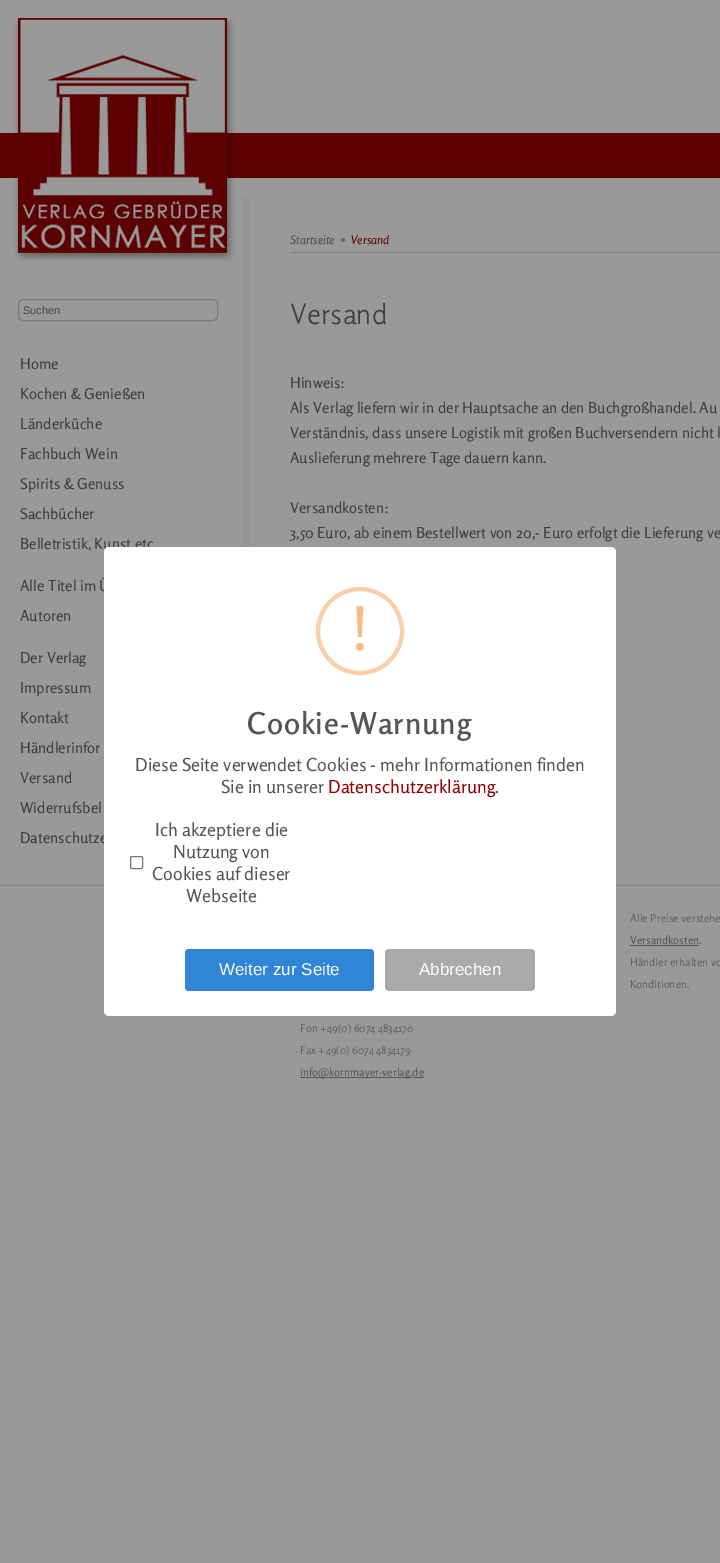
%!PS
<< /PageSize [720 1563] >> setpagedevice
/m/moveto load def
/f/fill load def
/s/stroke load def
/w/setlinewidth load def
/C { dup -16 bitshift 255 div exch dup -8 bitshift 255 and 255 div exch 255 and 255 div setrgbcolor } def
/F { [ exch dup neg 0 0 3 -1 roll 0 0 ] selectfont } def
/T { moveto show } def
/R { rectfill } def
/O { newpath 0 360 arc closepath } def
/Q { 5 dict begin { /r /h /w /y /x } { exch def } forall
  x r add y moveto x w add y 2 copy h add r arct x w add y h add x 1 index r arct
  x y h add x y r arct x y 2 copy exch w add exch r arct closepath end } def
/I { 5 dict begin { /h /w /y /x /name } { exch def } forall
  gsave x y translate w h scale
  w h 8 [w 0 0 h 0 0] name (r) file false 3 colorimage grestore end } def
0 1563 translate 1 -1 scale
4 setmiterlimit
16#999999 C
0 0 720 1563 R
16#5C0000 C
0 133 720 45 R
(1.rgb) 14 18 221 244 I
16#949494 C
243 197 7 350 R
16#787878 C
18.5 299.5 199 21 4.5 Q s
/LiberationSans-Regular 11 F
16#464646 C
(Suchen) 23 314 T
/Rosario-Regular 15 F
16#3D3D3D C
(Home) 20 369 T
(Kochen & Genießen) 20 399 T
(Länderküche) 20 429 T
(Fachbuch Wein) 20 459 T
(Spirits & Genuss) 20 489 T
(Sachbücher) 20 519 T
(Belletristik, Kunst etc) 20 549 T
(Alle Titel im Ü) 20 591 T
(Autoren) 20 621 T
(Der Verlag) 20 663 T
(Impressum) 20 693 T
(Kontakt) 20 723 T
(Händlerinfor) 20 753 T
(Versand) 20 783 T
(Widerrufsbel) 20 813 T
(Datenschutze) 20 843 T
16#828282 C
290 252 430 1 R
/Rosario-Italic 12 F
16#4C4C4C C
(Startseite) 290 244 T
16#3D3D3D C
(») 340 244 T
16#5C0000 C
(Versand) 351 244 T
/Rosario-Light 28 F
16#3D3D3D C
(Versand) 290 324 T
/Rosario-Regular 15 F
(Hinweis:) 290 388 T
(Als Verlag liefern wir in der Hauptsache an den Buchgroßhandel. Au) 290 413 T
(Verständnis, dass unsere Logistik mit großen Buchversendern nicht k) 290 438 T
(Auslieferung mehrere Tage dauern kann.) 290 463 T
(Versandkosten:) 290 513 T
(3,50 Euro, ab einem Bestellwert von 20,- Euro erfolgt die Lieferung ve) 290 538 T
16#828282 C
0 885 720 1 R
/Rosario-Regular 11 F
16#626262 C
(Alle Preise verstehe) 630 922 T
16#555555 C
(Versandkosten) 630 944 T
630 945 69 1 R
16#626262 C
(.) 699 944 T
(Händler erhalten vo) 630 966 T
(Konditionen.) 630 988 T
(Fon +49\(0\) 6074 4834170) 300 1032 T
(Fax +49\(0\) 6074 4834179) 300 1054 T
16#555555 C
300 1077 124 1 R
(info@kornmayer-verlag.de) 300 1076 T
16#FFFFFF C
104 547 512 469 5 Q f
16#FACEA8 C
4 w
360 631 42 O s
/Rosario-Regular 60 F
16#F8BB86 C
(!) 350 650 T
/Rosario-SemiBold 30 F
16#555555 C
247 734 m .9 0 (Cookie-Warnung) ashow
/Rosario-Regular 18 F
(Diese Seite verwendet Cookies - mehr Informationen finden) 135 771 T
(Sie in unserer) 221 793 T
16#990000 C
(Datenschutzerklärung) 328 793 T
16#555555 C
(.) 495 793 T
16#767676 C
1 w
130.5 856.5 12 12 1.5 Q s
16#555555 C
(Ich akzeptiere die) 155 836 T
(Nutzung von) 173 858 T
(Cookies auf dieser) 152 880 T
(Webseite) 186 902 T
16#3085D6 C
185 949 189 42 4 Q f
/LiberationSans-Regular 17 F
16#FFFFFF C
(Weiter zur Seite) 219 975 T
16#AAAAAA C
385 949 150 42 4 Q f
16#FFFFFF C
(Abbrechen) 419 975 T
showpage
